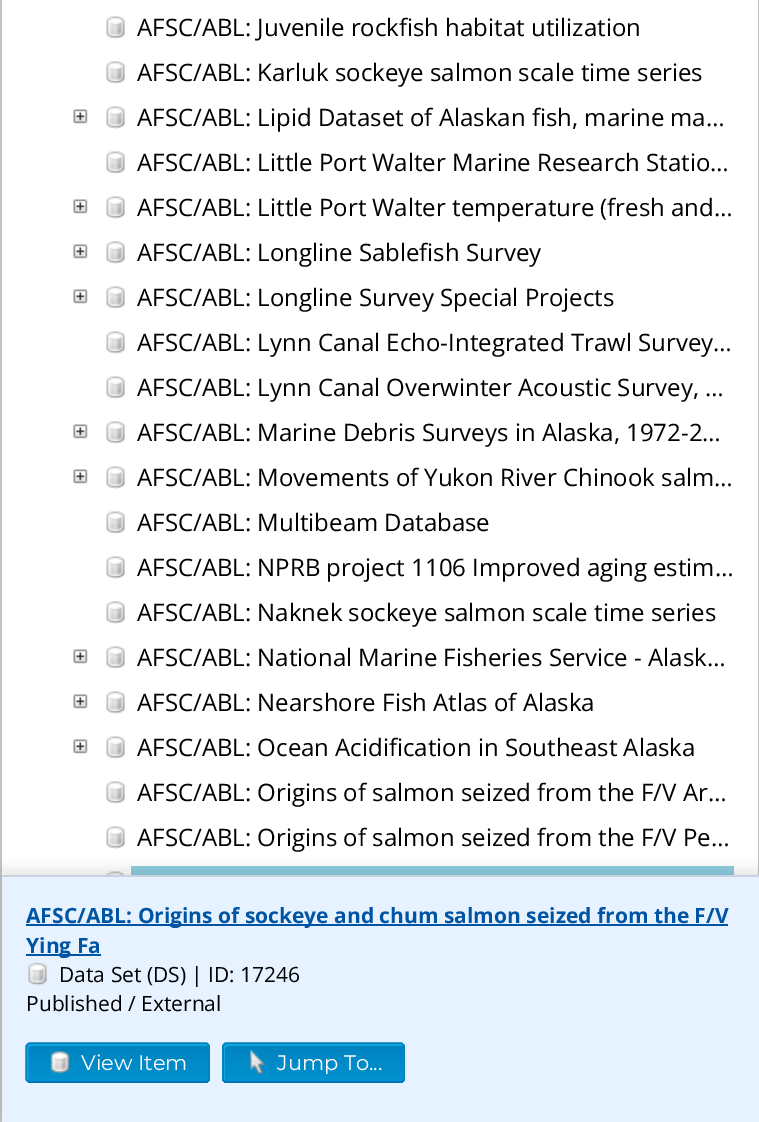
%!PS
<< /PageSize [759 1122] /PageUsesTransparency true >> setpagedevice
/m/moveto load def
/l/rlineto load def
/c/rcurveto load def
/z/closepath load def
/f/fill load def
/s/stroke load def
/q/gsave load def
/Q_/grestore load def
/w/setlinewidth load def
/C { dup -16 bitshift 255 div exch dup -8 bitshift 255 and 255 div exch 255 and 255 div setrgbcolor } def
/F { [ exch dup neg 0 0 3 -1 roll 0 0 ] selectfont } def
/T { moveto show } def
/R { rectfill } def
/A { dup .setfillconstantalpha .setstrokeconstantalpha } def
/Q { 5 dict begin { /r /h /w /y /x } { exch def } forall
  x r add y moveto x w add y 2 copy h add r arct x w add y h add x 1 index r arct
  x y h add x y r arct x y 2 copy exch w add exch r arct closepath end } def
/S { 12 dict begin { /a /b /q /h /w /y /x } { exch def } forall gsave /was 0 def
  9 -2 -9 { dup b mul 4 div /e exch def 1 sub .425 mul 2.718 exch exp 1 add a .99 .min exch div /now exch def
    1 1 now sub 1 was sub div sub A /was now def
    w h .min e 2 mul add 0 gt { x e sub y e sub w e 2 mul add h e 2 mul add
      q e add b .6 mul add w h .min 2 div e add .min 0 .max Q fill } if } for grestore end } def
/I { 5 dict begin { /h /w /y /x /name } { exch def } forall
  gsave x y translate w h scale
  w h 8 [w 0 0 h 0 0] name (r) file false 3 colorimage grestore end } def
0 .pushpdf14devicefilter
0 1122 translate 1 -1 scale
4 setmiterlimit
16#FFFFFF C
0 0 759 1122 R
16#C3C3C3 C
758 0 1 875 R
0 0 2 1122 R
(1.rgb) 106 16 19 23 I
/OpenSans-Regular 24 F
16#000000 C
(AFSC/ABL: Juvenile rockfish habitat utilization) 137 36 T
(1.rgb) 106 61 19 23 I
(AFSC/ABL: Karluk sockeye salmon scale time series) 137 81 T
(2.rgb) 73 109 15 15 I
(1.rgb) 106 106 19 23 I
(AFSC/ABL: Lipid Dataset of Alaskan fish, marine ma…) 137 126 T
(1.rgb) 106 151 19 23 I
(AFSC/ABL: Little Port Walter Marine Research Statio…) 137 171 T
(2.rgb) 73 199 15 15 I
(1.rgb) 106 196 19 23 I
(AFSC/ABL: Little Port Walter temperature \(fresh and…) 137 216 T
(2.rgb) 73 244 15 15 I
(1.rgb) 106 241 19 23 I
(AFSC/ABL: Longline Sablefish Survey) 137 261 T
(2.rgb) 73 289 15 15 I
(1.rgb) 106 286 19 23 I
(AFSC/ABL: Longline Survey Special Projects) 137 306 T
(1.rgb) 106 331 19 23 I
(AFSC/ABL: Lynn Canal Echo-Integrated Trawl Survey…) 137 351 T
(1.rgb) 106 376 19 23 I
(AFSC/ABL: Lynn Canal Overwinter Acoustic Survey, …) 137 396 T
(2.rgb) 73 424 15 15 I
(1.rgb) 106 421 19 23 I
(AFSC/ABL: Marine Debris Surveys in Alaska, 1972-2…) 137 441 T
(2.rgb) 73 469 15 15 I
(1.rgb) 106 466 19 23 I
(AFSC/ABL: Movements of Yukon River Chinook salm…) 137 486 T
(1.rgb) 106 511 19 23 I
(AFSC/ABL: Multibeam Database) 137 531 T
(1.rgb) 106 556 19 23 I
(AFSC/ABL: NPRB project 1106 Improved aging estim…) 137 576 T
(1.rgb) 106 601 19 23 I
(AFSC/ABL: Naknek sockeye salmon scale time series) 137 621 T
(2.rgb) 73 649 15 15 I
(1.rgb) 106 646 19 23 I
(AFSC/ABL: National Marine Fisheries Service - Alask…) 137 666 T
(2.rgb) 73 694 15 15 I
(1.rgb) 106 691 19 23 I
(AFSC/ABL: Nearshore Fish Atlas of Alaska) 137 711 T
(2.rgb) 73 739 15 15 I
(1.rgb) 106 736 19 23 I
(AFSC/ABL: Ocean Acidification in Southeast Alaska) 137 756 T
(1.rgb) 106 781 19 23 I
(AFSC/ABL: Origins of salmon seized from the F/V Ar…) 137 801 T
(1.rgb) 106 826 19 23 I
(AFSC/ABL: Origins of salmon seized from the F/V Pe…) 137 846 T
(3.rgb) 106 871 19 4 I
16#90CDE0 C
131 866 603 9 R
16#000000 C
2 869 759 247 0 6 .1 S
16#E6F2FF C
2 877 757 245 R
16#C7D3E0 C
2 875 757 2 R
16#0054A4 C
26 924 702 2 R
/OpenSans-Bold 21 F
(AFSC/ABL: Origins of sockeye and chum salmon seized from the F/V) 26 923 T
26 954 75 2 R
(Ying Fa) 26 953 T
(4.rgb) 28 962 19 24 I
/OpenSans-Regular 21 F
16#000000 C
(Data Set \(DS\) | ID: 17246) 59 982 T
(Published / External) 26 1011 T
q
26 1043 184 40 5 Q clip newpath
q 26 1044 m 184 0 l 0 38 l -184 0 l z clip newpath
<< /ShadingType 2 /ColorSpace /DeviceRGB /Coords [118 1082 118 1044] /Extend [true true] /Function << /FunctionType 2 /Domain [0 1] /C0 [0 .576 .816] /C1 [0 .51 .749] /N 1 >> >> shfill Q_
q 26 1082 m 184 0 l 0 1 l -184 0 l z clip newpath
<< /ShadingType 2 /ColorSpace /DeviceRGB /Coords [118 1119 118 1082] /Extend [true true] /Function << /FunctionType 2 /Domain [0 1] /C0 [0 .576 .816] /C1 [0 .51 .749] /N 1 >> >> shfill Q_
Q_
16#11A4E1 C
32 1046 m 175 0 l 2 0 l 0 -1 -2 -2 -3 -2 c -176 0 l -2 0 -3 1 -3 3 c 0 32 l 0 1 1 2 2 3 c -1 -1 -1 -33 -1 -34 c 1 -2 3 -2 4 -2 c z f
16#0071AE C
1.5 w
208 1081 m -2 1 l -147 0 l -29 0 l -2.5 -1 l s
16#0082BF C
27.5 1081 m -1 -.5 -1.5 -1.5 -1.5 -2.5 c 0 -31.5 l 0 -1 .5 -2 1.5 -2.5 c .5 -1 1.5 -1.5 2.5 -1.5 c 175.5 0 l 1 0 2 .5 2.5 1.5 c 1 .5 1 1.5 1 2.5 c 0 31.5 l 0 1 0 2 -1 2.5 c s
(5.rgb) 50 1051 20 23 I
/Montserrat-Regular 21 F
16#FFFFFF C
(View Item) 81 1070 T
q
222 1043 183 40 5 Q clip newpath
q 222 1044 m 183 0 l 0 38 l -183 0 l z clip newpath
<< /ShadingType 2 /ColorSpace /DeviceRGB /Coords [314 1082 314 1044] /Extend [true true] /Function << /FunctionType 2 /Domain [0 1] /C0 [0 .576 .816] /C1 [0 .51 .749] /N 1 >> >> shfill Q_
q 222 1082 m 183 0 l 0 1 l -183 0 l z clip newpath
<< /ShadingType 2 /ColorSpace /DeviceRGB /Coords [314 1119 314 1082] /Extend [true true] /Function << /FunctionType 2 /Domain [0 1] /C0 [0 .576 .816] /C1 [0 .51 .749] /N 1 >> >> shfill Q_
Q_
16#11A4E1 C
228 1046 m 174 0 l 2 0 l 0 -1 -2 -2 -3 -2 c -174 0 l -2 0 -3 1 -3 3 c 0 32 l 0 1 0 2 1 2 c 0 -28 l 0 -3 -1 -7 3 -7 c z f
16#0071AE C
403 1081 m -2 1 l -145.5 0 l -29 0 l -2.5 -1 l s
16#0082BF C
224 1081 m -1 -.5 -1 -1.5 -1 -2.5 c 0 -31.5 l 0 -1 0 -2 1 -2.5 c .5 -1 1.5 -1.5 2.5 -1.5 c 174 0 l 1 0 2 .5 2.5 1.5 c 1 .5 1 1.5 1 2.5 c 0 31.5 l 0 1 0 2 -1 2.5 c s
(6.rgb) 250 1050 16 24 I
16#FFFFFF C
(Jump To...) 277 1070 T
.poppdf14devicefilter showpage
